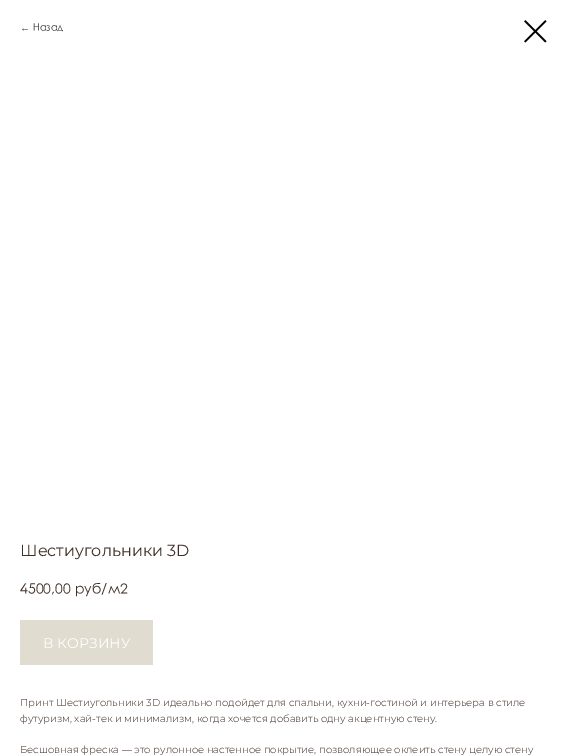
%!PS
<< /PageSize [567 755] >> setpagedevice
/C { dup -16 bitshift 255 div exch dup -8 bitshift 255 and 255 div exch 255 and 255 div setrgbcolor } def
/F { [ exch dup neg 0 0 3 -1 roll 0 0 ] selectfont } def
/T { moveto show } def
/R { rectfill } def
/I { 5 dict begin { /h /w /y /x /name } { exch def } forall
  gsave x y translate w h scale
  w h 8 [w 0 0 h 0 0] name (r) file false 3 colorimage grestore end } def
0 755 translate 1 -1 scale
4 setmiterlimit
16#FFFFFF C
0 0 567 755 R
/LiberationSans-Regular 10 F
16#333333 C
(←) 20 31 T
/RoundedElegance-Regular 10 F
(Назад) 33 31 T
(1.rgb) 524 20 23 23 I
/Montserrat-Regular 16 F
16#402F26 C
(Шестиугольники 3D) 20 556 T
/RoundedElegance-Regular 14 F
(4500,00 руб/м2) 20 594 T
16#E0DCCF C
20 620 133 45 R
/Montserrat-Regular 14 F
16#FFFFFF C
(В КОРЗИНУ) 43 648 T
/Montserrat-Light 10 F
16#402F26 C
(Принт Шестиугольники 3D идеально подойдет для спальни, кухни-гостиной и интерьера в стиле) 20 706 T
(футуризм, хай-тек и минимализм, когда хочется добавить одну акцентную стену.) 20 722 T
(Бесшовная фреска — это рулонное настенное покрытие, позволяющее оклеить стену целую стену) 20 753 T
showpage
